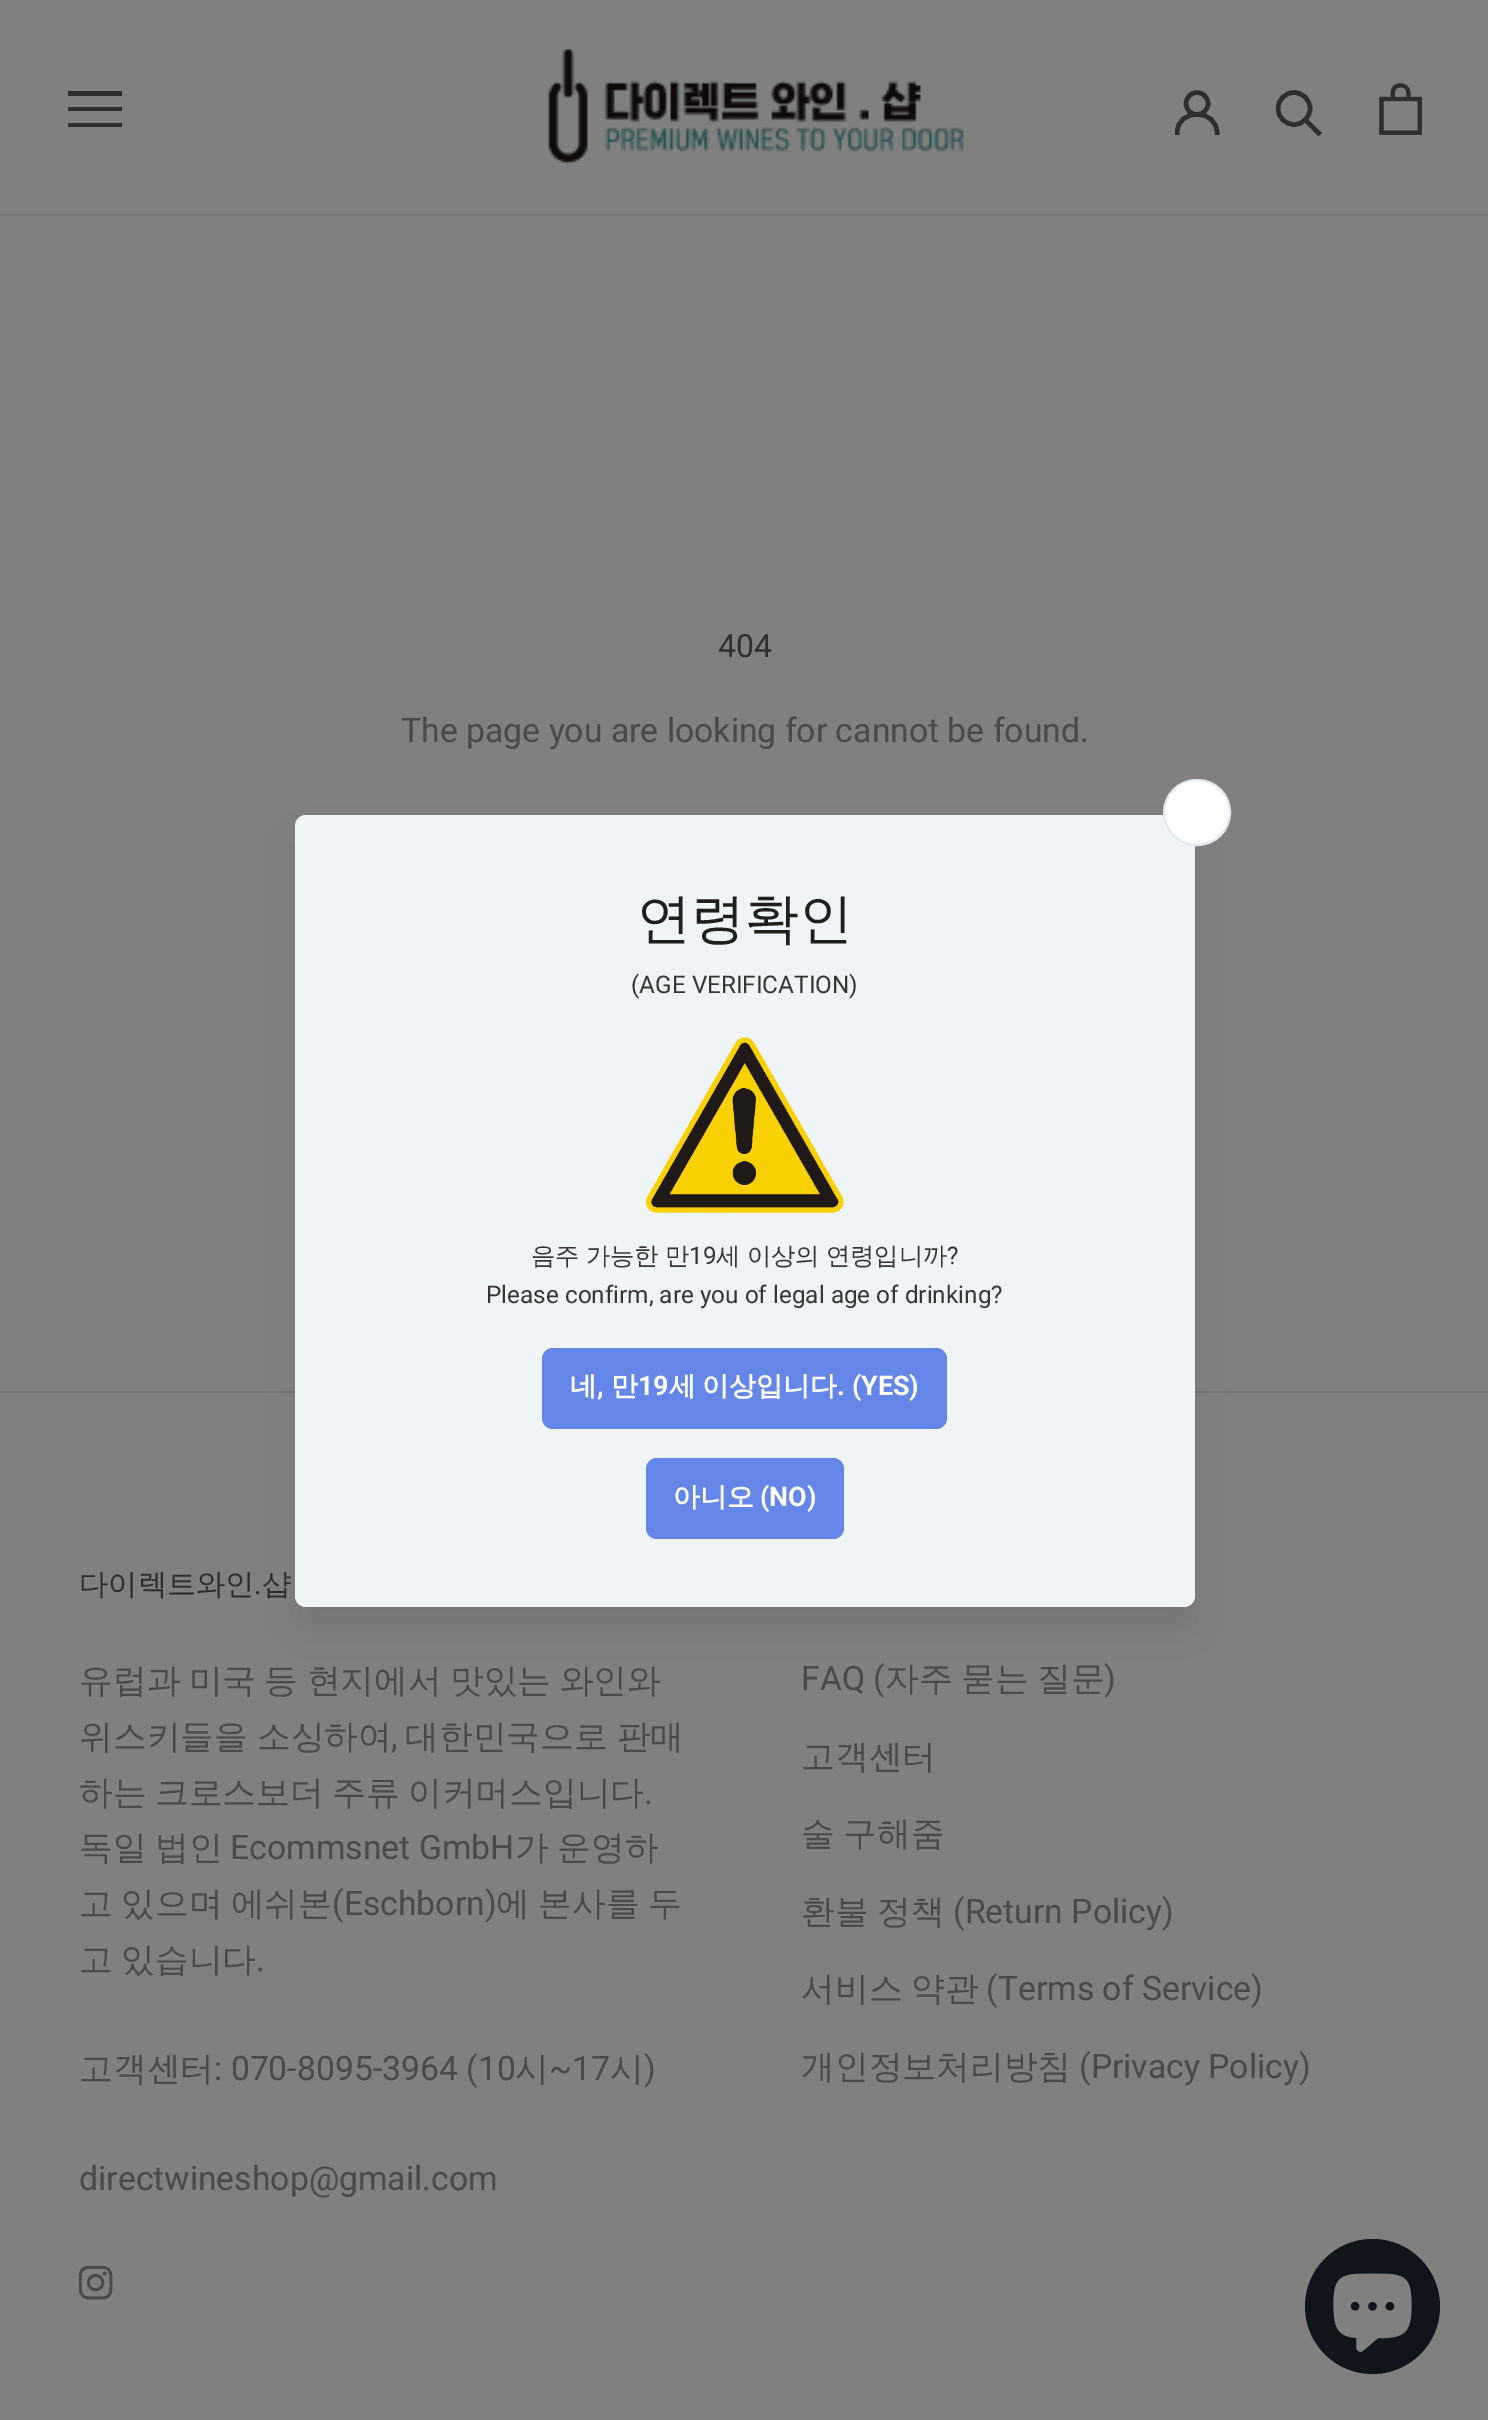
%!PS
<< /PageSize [1488 2420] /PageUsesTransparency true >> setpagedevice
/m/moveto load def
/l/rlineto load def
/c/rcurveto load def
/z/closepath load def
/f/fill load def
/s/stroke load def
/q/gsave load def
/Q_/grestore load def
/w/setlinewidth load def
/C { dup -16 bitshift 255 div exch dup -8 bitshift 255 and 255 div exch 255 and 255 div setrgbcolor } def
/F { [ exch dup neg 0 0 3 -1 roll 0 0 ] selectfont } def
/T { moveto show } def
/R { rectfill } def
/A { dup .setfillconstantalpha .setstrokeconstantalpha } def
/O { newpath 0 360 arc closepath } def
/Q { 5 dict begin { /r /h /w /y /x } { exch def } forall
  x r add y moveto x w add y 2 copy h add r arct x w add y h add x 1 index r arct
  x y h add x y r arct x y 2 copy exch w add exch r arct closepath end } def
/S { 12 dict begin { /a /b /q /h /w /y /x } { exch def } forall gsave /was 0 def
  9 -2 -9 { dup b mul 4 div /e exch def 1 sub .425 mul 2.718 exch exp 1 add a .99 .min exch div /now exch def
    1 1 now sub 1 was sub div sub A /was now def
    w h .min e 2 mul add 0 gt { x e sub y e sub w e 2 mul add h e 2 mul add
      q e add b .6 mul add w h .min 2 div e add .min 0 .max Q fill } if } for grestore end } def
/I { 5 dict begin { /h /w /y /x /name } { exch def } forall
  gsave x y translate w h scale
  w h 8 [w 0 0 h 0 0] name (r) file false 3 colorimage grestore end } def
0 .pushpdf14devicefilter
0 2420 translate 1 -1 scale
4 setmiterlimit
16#808080 C
0 0 1488 2420 R
16#747474 C
0 214 1488 2 R
16#2E2E2E C
68 127 m 0 -4 l 54 0 l 0 4 l z 68 107 m 54 0 l 0 4 l -54 0 l z 68 91 m 54 0 l 0 5 l -54 0 l z f
(1.rgb) 548 49 416 114 I
q
1175 90 45 45 rectclip
4.5 w
2 setlinecap
1177 133 m 0 -25 40 -25 40 0 c s
Q_
4.5 w
1197 103.5 11 O s
2 setlinecap
1318.5 133 m -13 -13 l s
q
1276 90 47 47 rectclip
0 setlinecap
1294 108.5 16 O s
Q_
(2.rgb) 1379 83 43 52 I
/Roboto-Regular 32 F
(404) 718 657 T
/Roboto-Regular 33.75 F
16#4A4A4A C
(The page you are looking for cannot be found.) 401 742 T
16#747474 C
0 1391 1488 2 R
/WenQuanYiZenHei-Medium 29.25 F
16#2E2E2E C
(다이렉트와인) 79 1594 T
/Roboto-Regular 29.25 F
(.) 254 1594 T
/WenQuanYiZenHei-Medium 29.25 F
(샵) 262 1594 T
/WenQuanYiZenHei-Medium 33.75 F
16#4A4A4A C
79 1692 m -1.75 0 32 (유럽과 미국 등 현지에서 맛있는 와인와) widthshow
79 1748 m -1 0 32 (위스키들을 소싱하여) widthshow
/Roboto-Regular 33.75 F
(,) 391 1748 T
/WenQuanYiZenHei-Medium 33.75 F
405 1748 m -1 0 32 (대한민국으로 판매) widthshow
79 1804 m -1.75 0 32 (하는 크로스보더 주류 이커머스입니다) widthshow
/Roboto-Regular 33.75 F
(.) 644 1804 T
/WenQuanYiZenHei-Medium 33.75 F
(독일) 79 1859 T
(법인) 155 1859 T
/Roboto-Regular 33.75 F
(Ecommsnet GmbH) 230 1859 T
/WenQuanYiZenHei-Medium 33.75 F
(가) 515 1859 T
(운영하) 557 1859 T
79 1915 m -1.75 0 32 (고 있으며 에쉬본) widthshow
/Roboto-Regular 33.75 F
(\(Eschborn\)) 332 1915 T
/WenQuanYiZenHei-Medium 33.75 F
496 1915 m -1.75 0 32 (에 본사를 두) widthshow
79 1971 m -1.75 0 32 (고 있습니다) widthshow
/Roboto-Regular 33.75 F
(.) 256 1971 T
/WenQuanYiZenHei-Medium 33.75 F
(고객센터) 79 2080 T
/Roboto-Regular 33.75 F
(: 070-8095-3964 \(10) 214 2080 T
/WenQuanYiZenHei-Medium 33.75 F
(시) 515 2080 T
/Roboto-Regular 33.75 F
(~17) 549 2080 T
/WenQuanYiZenHei-Medium 33.75 F
(시) 610 2080 T
/Roboto-Regular 33.75 F
(\)) 644 2080 T
(directwineshop@gmail.com) 79 2190 T
(3.rgb) 79 2266 34 34 I
(FAQ \() 801 1690 T
/WenQuanYiZenHei-Medium 33.75 F
(자주) 885 1690 T
(묻는) 961 1690 T
(질문) 1037 1690 T
/Roboto-Regular 33.75 F
(\)) 1104 1690 T
/WenQuanYiZenHei-Medium 33.75 F
(고객센터) 801 1768 T
801 1845 m -1.75 0 32 (술 구해줌) widthshow
(환불) 801 1923 T
(정책) 877 1923 T
/Roboto-Regular 33.75 F
(\(Return Policy\)) 953 1923 T
/WenQuanYiZenHei-Medium 33.75 F
(서비스) 801 2000 T
(약관) 911 2000 T
/Roboto-Regular 33.75 F
(\(Terms of Service\)) 986 2000 T
/WenQuanYiZenHei-Medium 33.75 F
(개인정보처리방침) 801 2078 T
/Roboto-Regular 33.75 F
(\(Privacy Policy\)) 1079 2078 T
16#000000 C
302 844 886 778 3 17 .1 S
q
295 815 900 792 rectclip
302 821 886 779 3 22.5 .12 S
Q_
16#EFF4F7 C
295 815 900 792 11 Q f
16#FFFFFF C
1164 780 66 65 32.5 Q q f Q_
16#E2E8F0 C
2 w
0 setlinecap
s
/WenQuanYiZenHei-Medium 54 F
16#1F1F1F C
(연령확인) 637 937 T
/Roboto-Regular 24.3 F
16#363636 C
(\(AGE VERIFICATION\)) 631 993 T
(4.rgb) 645 1037 199 176 I
/WenQuanYiZenHei-Medium 24.3 F
531 1264 m -1 0 32 (음주 가능한 만) widthshow
/Roboto-Regular 24.3 F
(19) 689 1264 T
/WenQuanYiZenHei-Medium 24.3 F
716 1264 m -1 0 32 (세 이상의 연령입니까) widthshow
/Roboto-Regular 24.3 F
(?) 947 1264 T
(Please confirm, are you of legal age of drinking?) 486 1303 T
16#6386E8 C
542 1348 405 81 11 Q f
/WenQuanYiZenHei-Bold 27 F
16#FFFFFF C
(네) 570 1395 T
/Roboto-Bold 27 F
(,) 597 1395 T
/WenQuanYiZenHei-Bold 27 F
(만) 611 1395 T
/Roboto-Bold 27 F
(19) 638 1395 T
/WenQuanYiZenHei-Bold 27 F
(세) 669 1395 T
(이상입니다) 702 1395 T
/Roboto-Bold 27 F
(. \(YES\)) 837 1395 T
16#6386E8 C
646 1458 198 81 11 Q f
/WenQuanYiZenHei-Bold 27 F
16#FFFFFF C
(아니오) 673 1506 T
/Roboto-Bold 27 F
(\(NO\)) 760 1506 T
16#10151B C
1372.5 2306.5 67.5 O f
(5.rgb) 1333 2273 79 79 I
.poppdf14devicefilter showpage
